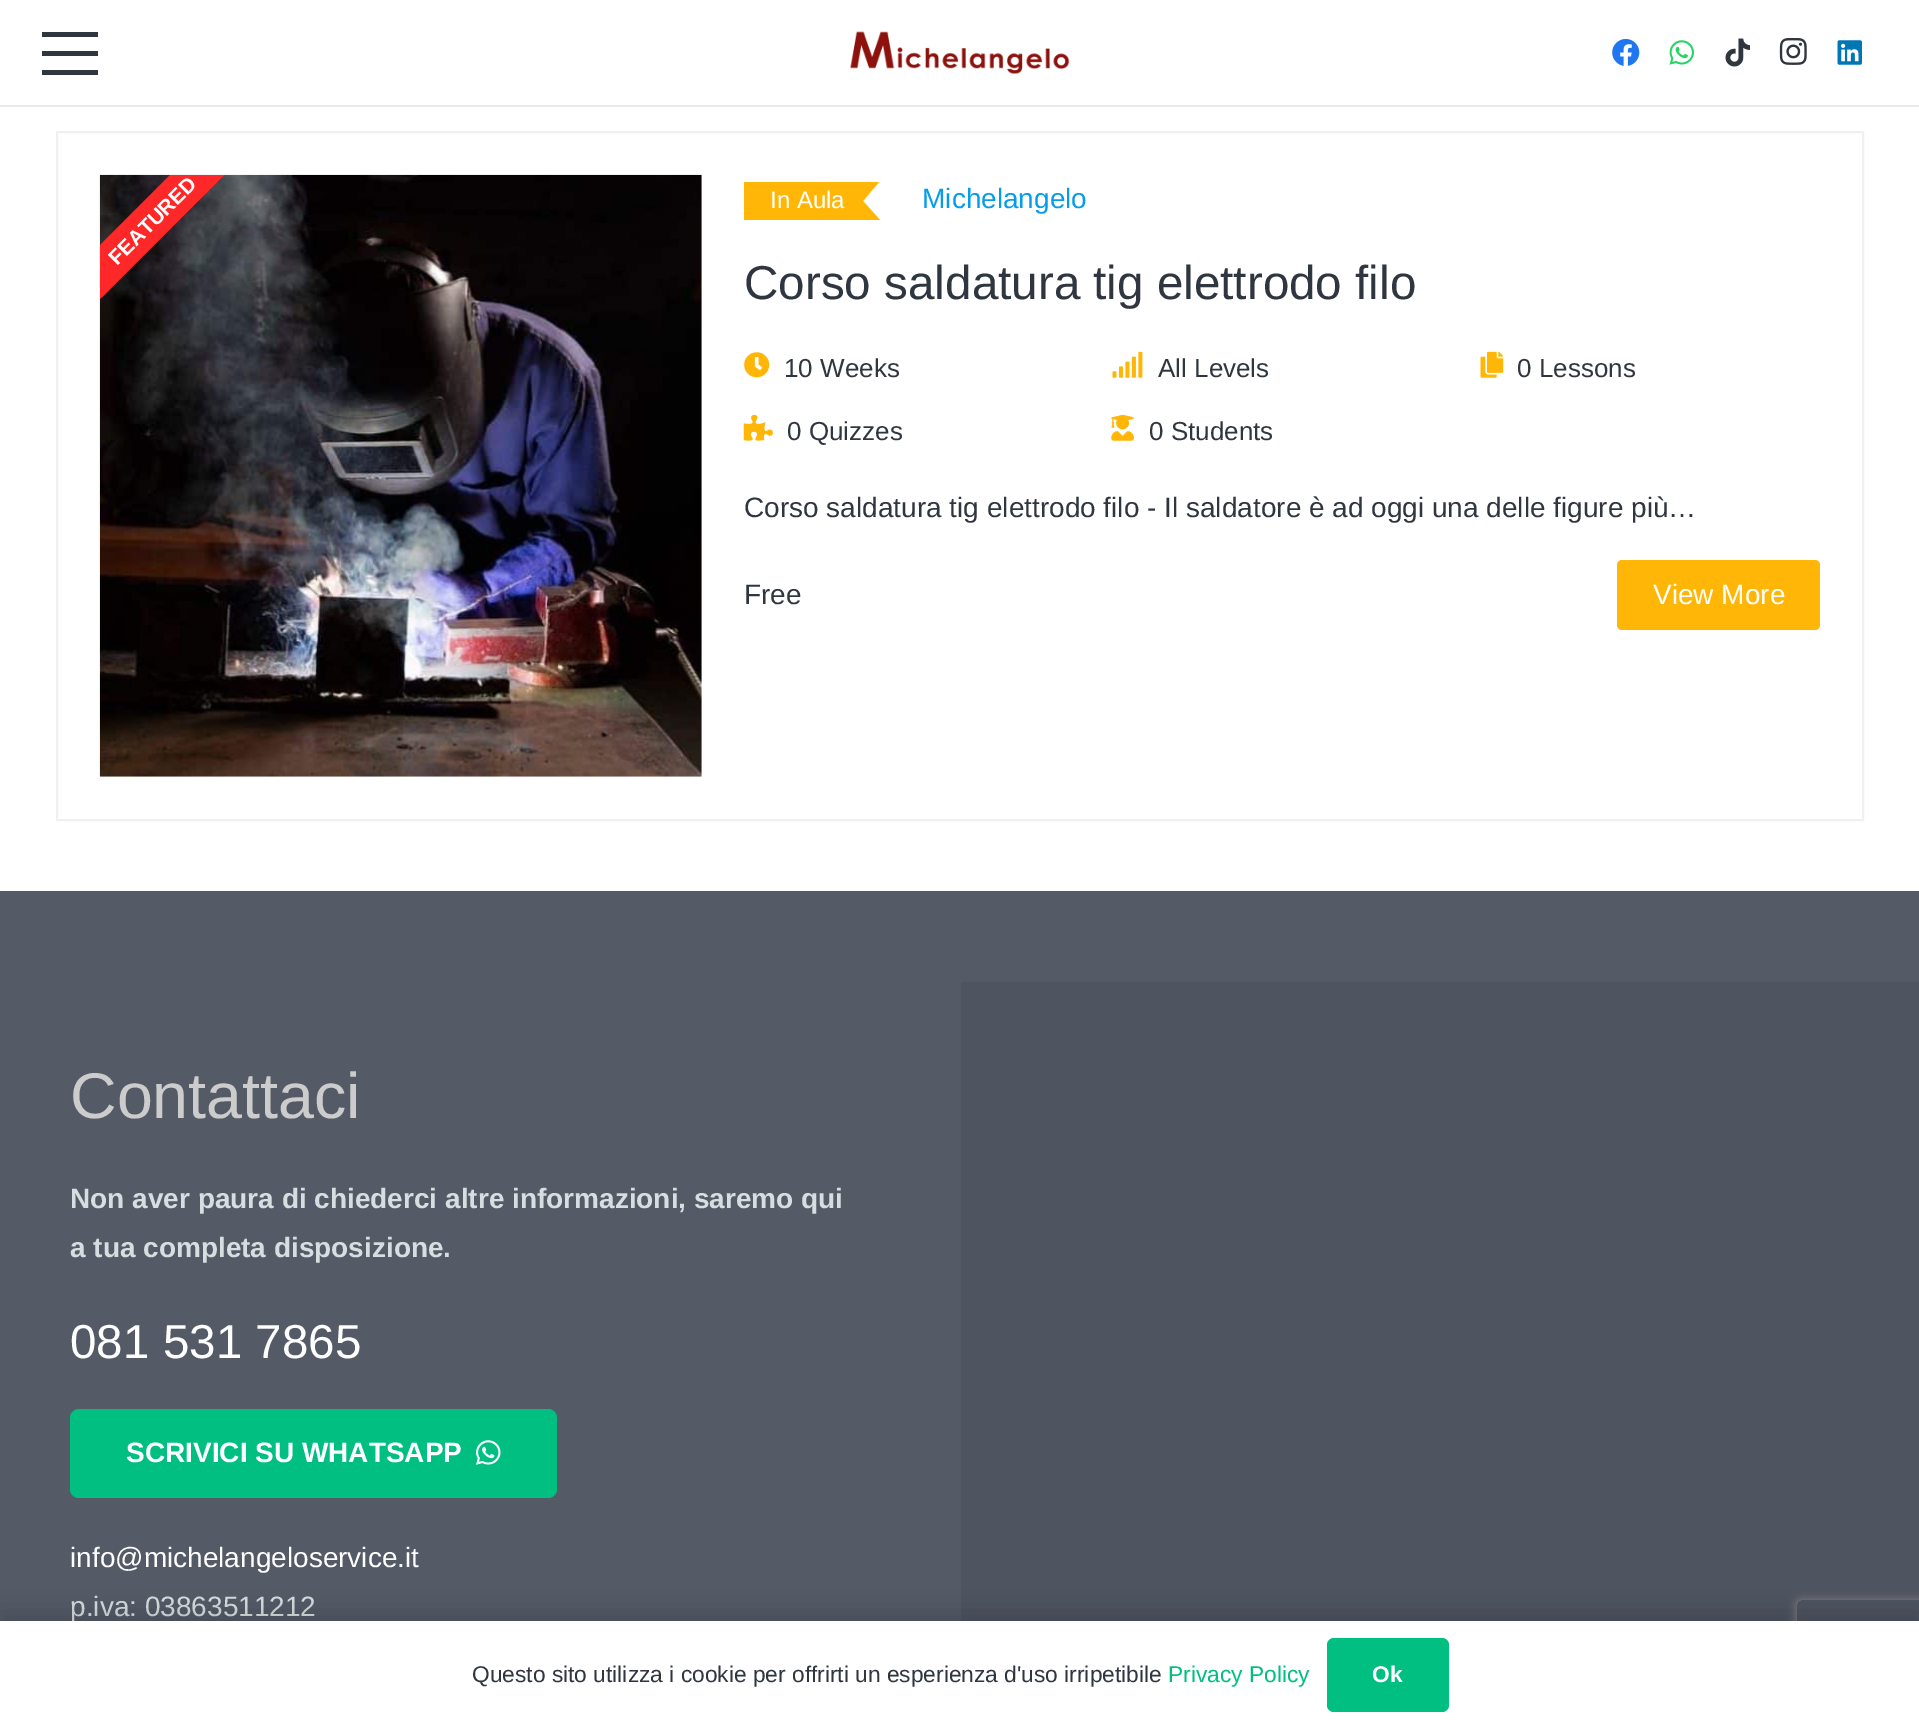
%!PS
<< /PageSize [1919 1729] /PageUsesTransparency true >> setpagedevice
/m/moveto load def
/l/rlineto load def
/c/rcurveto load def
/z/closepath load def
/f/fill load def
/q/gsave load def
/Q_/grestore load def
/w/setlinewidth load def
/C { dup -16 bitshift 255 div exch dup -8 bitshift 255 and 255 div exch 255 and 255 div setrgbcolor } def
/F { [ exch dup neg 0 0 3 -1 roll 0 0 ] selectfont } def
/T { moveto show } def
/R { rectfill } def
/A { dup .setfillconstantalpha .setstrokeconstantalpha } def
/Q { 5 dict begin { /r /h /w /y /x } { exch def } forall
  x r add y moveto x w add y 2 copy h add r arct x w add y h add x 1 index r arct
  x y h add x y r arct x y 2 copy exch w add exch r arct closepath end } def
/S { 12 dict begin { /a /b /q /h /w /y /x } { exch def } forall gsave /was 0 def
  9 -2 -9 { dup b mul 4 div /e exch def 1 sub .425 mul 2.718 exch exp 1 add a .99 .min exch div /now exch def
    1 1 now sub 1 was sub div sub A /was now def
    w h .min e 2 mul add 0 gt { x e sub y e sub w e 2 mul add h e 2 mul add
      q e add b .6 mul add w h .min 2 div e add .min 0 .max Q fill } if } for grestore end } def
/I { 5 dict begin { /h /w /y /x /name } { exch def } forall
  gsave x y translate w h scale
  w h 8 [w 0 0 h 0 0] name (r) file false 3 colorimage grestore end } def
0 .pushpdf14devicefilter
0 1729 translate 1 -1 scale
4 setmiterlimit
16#FFFFFF C
0 0 1919 1729 R
16#EBEBEB C
0 105 m 0 2 l 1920 0 l 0 -105 l 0 103 l z f
16#303640 C
42 51 56 5 R
42 32 56 5 R
42 70 56 5 R
(1.rgb) 850 31 220 43 I
(2.rgb) 1612 38 28 28 I
(3.rgb) 1669 40 25 25 I
(4.rgb) 1725 38 25 29 I
(5.rgb) 1779 38 28 27 I
(6.rgb) 1837 40 25 25 I
16#F0F0F0 C
2 w
57 132 1806 688 rectstroke
(7.rgb) 99 174 603 603 I
q
100 175 602 602 rectclip
16#FF2828 C
-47 392 m 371 -371 l 27 27 l -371 371 l z f
Q_
/LiberationSans-Bold 21 F
16#FFFFFF C
q 117 266 translate -45 rotate 0 0 m (FEATURED) show Q_
16#FFB606 C
744 182 m 135 0 l -16 19 l 17 19 l -136 0 l z f
/LiberationSans-Regular 24 F
16#FFFFFF C
(In Aula) 770 208 T
/LiberationSans-Regular 28 F
16#059DE9 C
(Michelangelo) 922 208 T
/LiberationSans-Regular 47.6 F
16#303640 C
(Corso saldatura tig elettrodo filo) 744 299 T
(8.rgb) 744 352 26 26 I
/LiberationSans-Regular 26 F
(10 Weeks) 784 377 T
(9.rgb) 1112 351 31 27 I
(All Levels) 1158 377 T
(10.rgb) 1480 351 24 27 I
(0 Lessons) 1517 377 T
(11.rgb) 743 414 30 27 I
(0 Quizzes) 787 440 T
(12.rgb) 1111 414 23 27 I
(0 Students) 1149 440 T
/LiberationSans-Regular 28 F
(Corso saldatura tig elettrodo filo - Il saldatore è ad oggi una delle figure più…) 744 517 T
(Free) 744 604 T
16#FFB606 C
1617 560 203 70 5 Q f
16#FFFFFF C
(View More) 1653 604 T
16#545A66 C
0 891 1919 730 R
/LiberationSans-Regular 64.5 F
16#CCCCCC C
(Contattaci) 70 1118 T
/LiberationSans-Bold 28 F
16#D7DDE0 C
(Non aver paura di chiederci altre informazioni, saremo qui) 70 1208 T
(a tua completa disposizione.) 70 1257 T
/LiberationSans-Regular 47.6 F
16#FFFFFF C
(081 531 7865) 70 1358 T
16#00BF80 C
70 1409 487 89 9 Q f
/LiberationSans-Bold 28 F
16#FFFFFF C
(SCRIVICI SU WHATSAPP) 126 1462 T
(13.rgb) 476 1440 25 25 I
/LiberationSans-Regular 28 F
(info@michelangeloservice.it) 70 1567 T
16#D7DDE0 C
(p.iva: 03863511212) 70 1616 T
16#4F5461 C
961 982 958 639 R
16#000000 C
0 1612 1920 108 0 13 .15 S
q
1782 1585 m 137 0 l 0 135 l -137 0 l z 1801 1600 m 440 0 l 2 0 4 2 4 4 c 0 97 l 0 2 -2 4 -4 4 c -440 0 l -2 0 -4 -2 -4 -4 c 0 -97 l 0 -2 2 -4 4 -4 c z eoclip newpath
16#808080 C
1797 1600 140 105 4 4.5 1 S
Q_
16#FFFFFF C
0 1621 1919 108 R
/LiberationSans-Regular 22.75 F
16#303640 C
(Questo sito utilizza i cookie per offrirti un esperienza d'uso irripetibile) 472 1682 T
16#00BF80 C
(Privacy Policy) 1168 1682 T
1327 1638 122 74 7 Q f
/LiberationSans-Bold 22.75 F
16#FFFFFF C
(Ok) 1372 1682 T
.poppdf14devicefilter showpage
